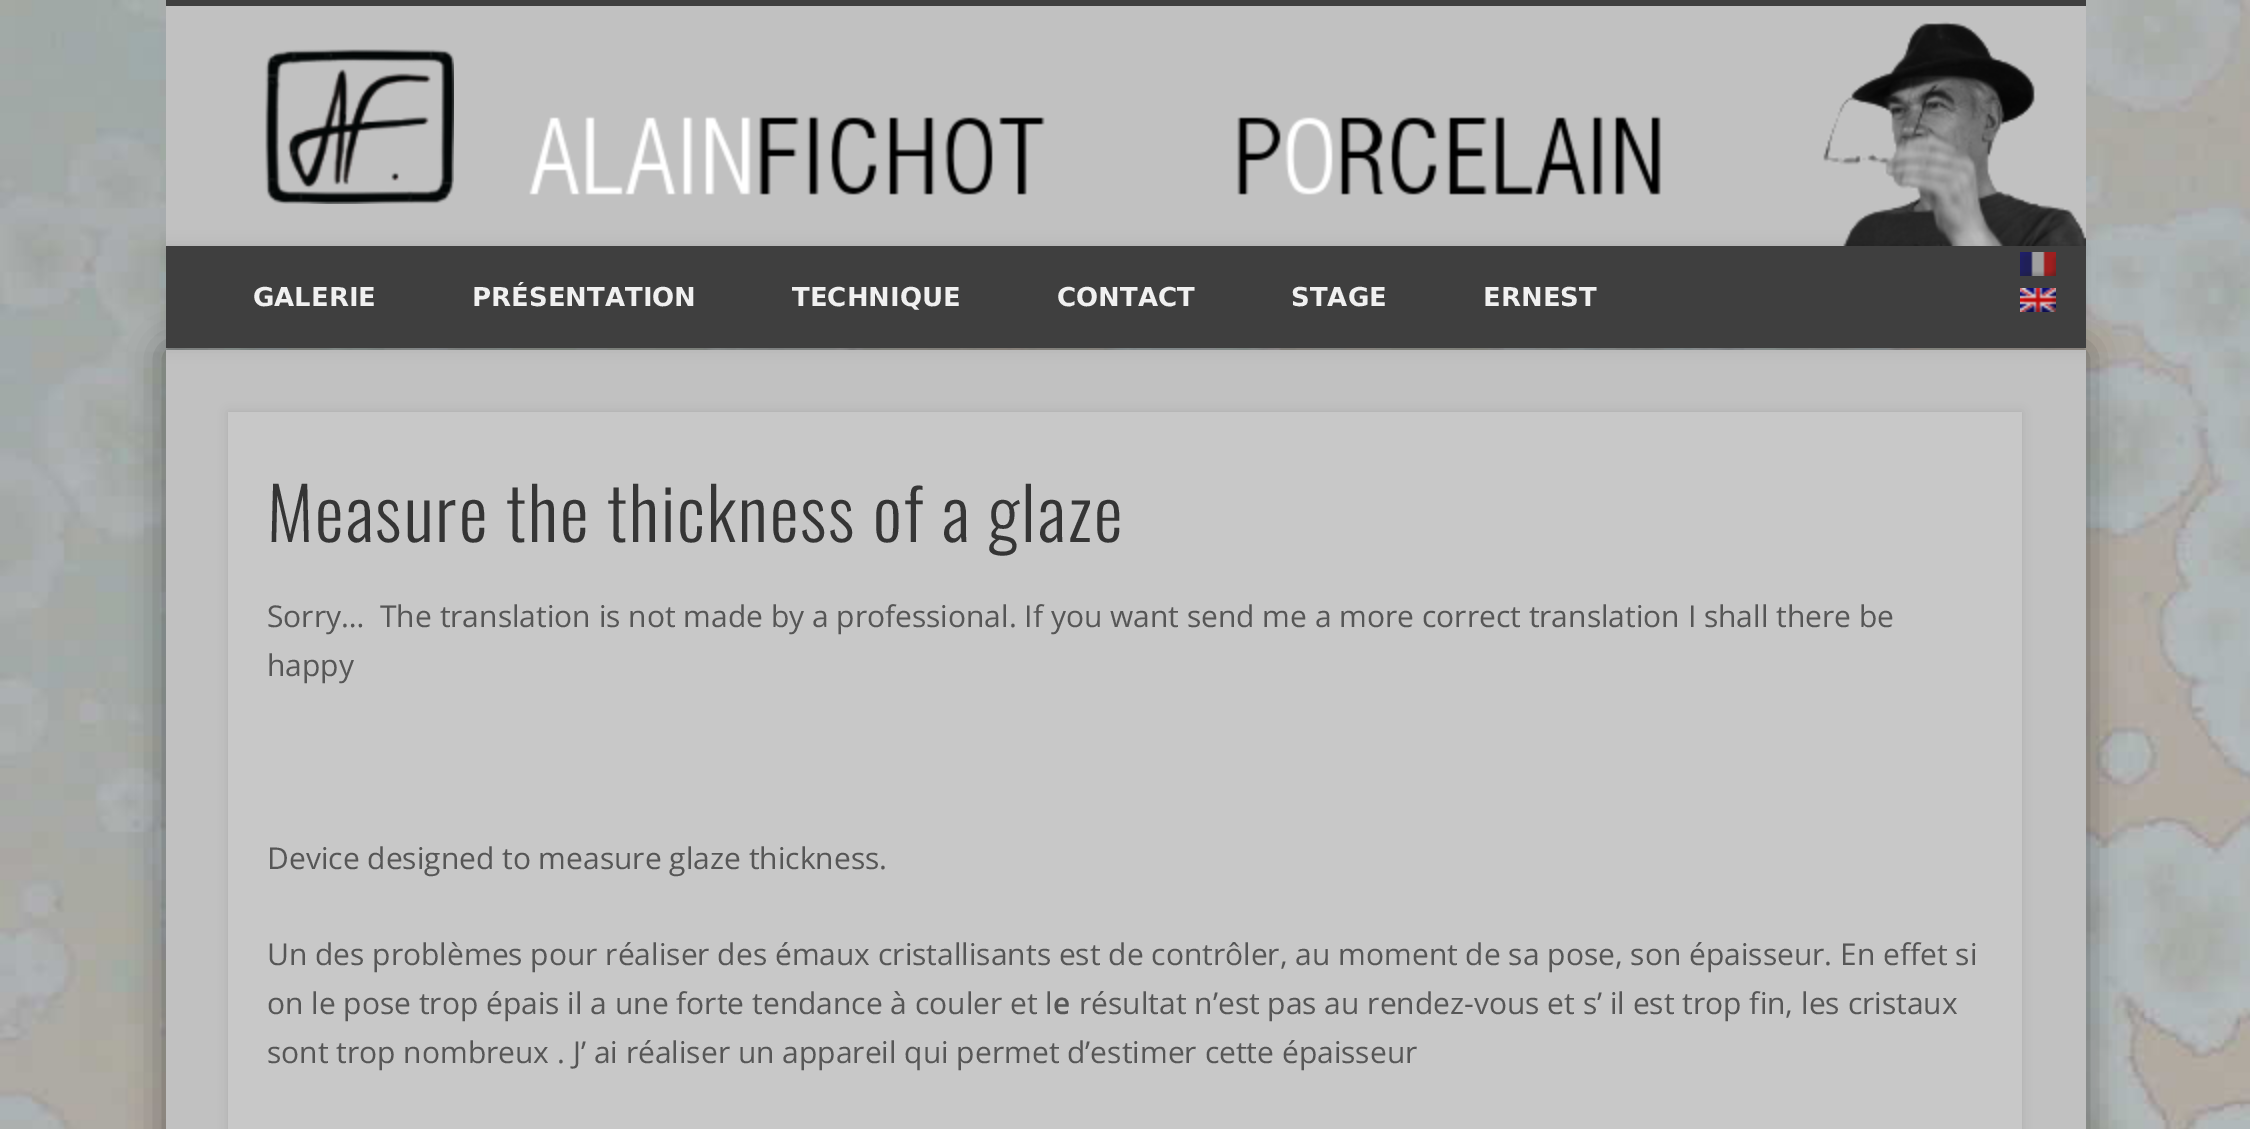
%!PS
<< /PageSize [2250 1129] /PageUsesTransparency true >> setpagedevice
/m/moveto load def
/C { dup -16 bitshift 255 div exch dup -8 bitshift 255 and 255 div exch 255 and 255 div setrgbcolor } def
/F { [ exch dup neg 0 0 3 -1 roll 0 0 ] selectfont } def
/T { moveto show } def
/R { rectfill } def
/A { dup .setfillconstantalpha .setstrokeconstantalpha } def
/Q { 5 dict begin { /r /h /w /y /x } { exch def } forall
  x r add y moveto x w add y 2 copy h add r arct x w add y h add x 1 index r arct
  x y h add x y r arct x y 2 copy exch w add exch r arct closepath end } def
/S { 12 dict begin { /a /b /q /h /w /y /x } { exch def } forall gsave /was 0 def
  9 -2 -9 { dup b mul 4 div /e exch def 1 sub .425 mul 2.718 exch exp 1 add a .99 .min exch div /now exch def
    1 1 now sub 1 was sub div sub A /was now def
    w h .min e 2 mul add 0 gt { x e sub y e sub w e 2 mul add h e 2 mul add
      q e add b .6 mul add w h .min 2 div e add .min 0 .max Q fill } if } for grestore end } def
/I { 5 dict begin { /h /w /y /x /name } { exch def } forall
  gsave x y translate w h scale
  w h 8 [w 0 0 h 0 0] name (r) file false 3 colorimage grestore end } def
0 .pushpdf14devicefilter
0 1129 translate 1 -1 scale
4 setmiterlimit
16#FFFFFF C
0 0 2250 1129 R
(1.rgb) 0 0 2250 1129 I
16#000000 C
166 350 1920 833 0 18 .4 S
16#C1C1C1 C
166 350 1920 779 R
166 6 1920 240 R
(2.rgb) 529 21 1557 225 I
16#3F3F3F C
166 0 1920 6 R
(3.rgb) 265 49 189 155 I
16#000000 C
166 246 1920 102 0 7 .1 S
16#3F3F3F C
166 246 1920 102 R
/DejaVuSans-Bold 26 F
16#F0F0F0 C
(GALERIE) 253 306 T
(PRÉSENTATION) 472 306 T
(TECHNIQUE) 792 306 T
(CONTACT) 1057 306 T
(STAGE) 1291 306 T
(ERNEST) 1483 306 T
(4.rgb) 2020 252 36 24 I
(5.rgb) 2020 288 36 24 I
16#000000 C
228 412 1794 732 0 5 .1 S
16#C8C8C8 C
228 412 1794 717 R
/Oswald-Light 72 F
16#353535 C
267 542 m 2 0 (Measure the thickness of a glaze) ashow
/OpenSans-Regular 30 F
16#565656 C
(Sorry…  The translation is not made by a professional. If you want send me a more correct translation I shall there be) 267 627 T
(happy) 267 676 T
(Device designed to measure glaze thickness.) 267 869 T
(Un des problèmes pour réaliser des émaux cristallisants est de contrôler, au moment de sa pose, son épaisseur. En effet si) 267 965 T
(on le pose trop épais il a une forte tendance à couler et l) 267 1014 T
/OpenSans-SemiBold 30 F
(e) 1053 1014 T
/OpenSans-Regular 30 F
(résultat n’est pas au rendez-vous et s’ il est trop fin, les cristaux) 1079 1014 T
(sont trop nombreux . J’ ai réaliser un appareil qui permet d’estimer cette épaisseur) 267 1063 T
.poppdf14devicefilter showpage
